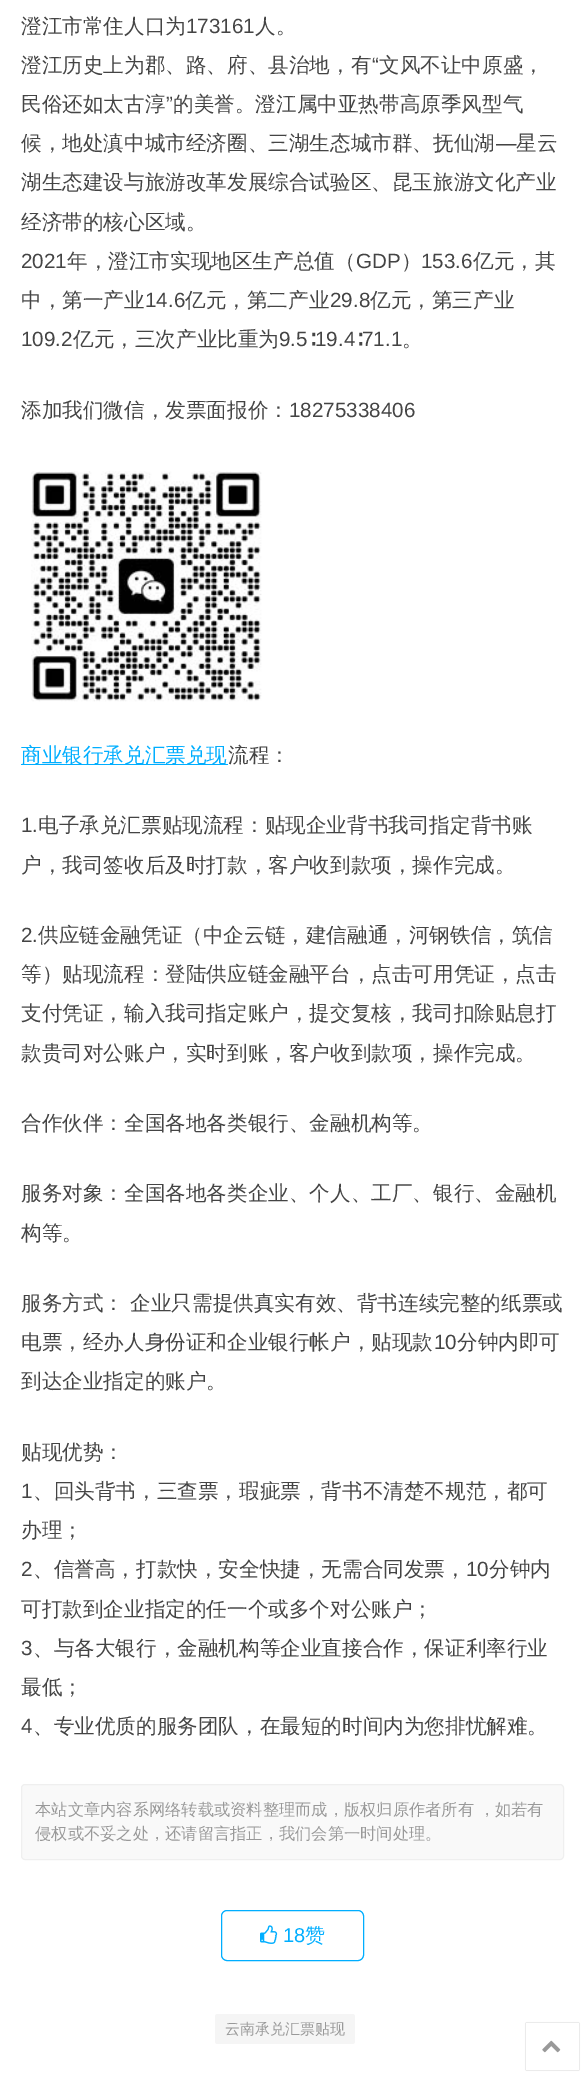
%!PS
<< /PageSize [584 2074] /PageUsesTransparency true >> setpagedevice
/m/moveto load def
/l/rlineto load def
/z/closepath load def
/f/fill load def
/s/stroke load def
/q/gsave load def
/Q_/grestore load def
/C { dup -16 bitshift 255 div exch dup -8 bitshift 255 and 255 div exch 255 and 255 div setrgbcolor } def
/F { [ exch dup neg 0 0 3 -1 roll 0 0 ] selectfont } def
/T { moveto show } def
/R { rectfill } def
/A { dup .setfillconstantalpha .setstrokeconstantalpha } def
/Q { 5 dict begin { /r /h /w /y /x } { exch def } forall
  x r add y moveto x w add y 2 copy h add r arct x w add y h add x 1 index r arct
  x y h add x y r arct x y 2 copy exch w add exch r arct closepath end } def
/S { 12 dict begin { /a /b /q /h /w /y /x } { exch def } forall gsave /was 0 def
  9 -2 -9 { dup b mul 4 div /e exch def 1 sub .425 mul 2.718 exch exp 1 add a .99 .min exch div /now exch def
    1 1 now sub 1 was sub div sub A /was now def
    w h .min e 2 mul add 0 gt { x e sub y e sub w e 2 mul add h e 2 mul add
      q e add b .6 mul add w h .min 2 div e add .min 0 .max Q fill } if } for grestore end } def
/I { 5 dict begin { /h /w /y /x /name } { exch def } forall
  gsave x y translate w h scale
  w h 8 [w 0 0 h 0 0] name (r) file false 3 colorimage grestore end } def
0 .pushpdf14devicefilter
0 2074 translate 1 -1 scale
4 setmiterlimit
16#FFFFFF C
0 0 584 2074 R
/WenQuanYiZenHei-Medium 20.6 F
16#444444 C
(澄江市常住人口为) 21 33 T
/LiberationSans-Regular 20.6 F
(173161) 186 33 T
/WenQuanYiZenHei-Medium 20.6 F
(人。) 255 33 T
(澄江历史上为郡、路、府、县治地，有) 21 72 T
/LiberationSans-Regular 20.6 F
(“) 372 72 T
/WenQuanYiZenHei-Medium 20.6 F
(文风不让中原盛，) 379 72 T
(民俗还如太古淳) 21 111 T
/LiberationSans-Regular 20.6 F
(”) 166 111 T
/WenQuanYiZenHei-Medium 20.6 F
(的美誉。澄江属中亚热带高原季风型气) 173 111 T
(候，地处滇中城市经济圈、三湖生态城市群、抚仙湖) 21 150 T
/LiberationSans-Regular 20.6 F
(—) 496 150 T
/WenQuanYiZenHei-Medium 20.6 F
(星云) 516 150 T
(湖生态建设与旅游改革发展综合试验区、昆玉旅游文化产业) 21 189 T
(经济带的核心区域。) 21 229 T
/LiberationSans-Regular 20.6 F
(2021) 21 268 T
/WenQuanYiZenHei-Medium 20.6 F
(年，澄江市实现地区生产总值（) 67 268 T
/LiberationSans-Regular 20.6 F
(GDP) 356 268 T
/WenQuanYiZenHei-Medium 20.6 F
(）) 401 268 T
/LiberationSans-Regular 20.6 F
(153.6) 421 268 T
/WenQuanYiZenHei-Medium 20.6 F
(亿元，其) 473 268 T
(中，第一产业) 21 307 T
/LiberationSans-Regular 20.6 F
(14.6) 145 307 T
/WenQuanYiZenHei-Medium 20.6 F
(亿元，第二产业) 185 307 T
/LiberationSans-Regular 20.6 F
(29.8) 330 307 T
/WenQuanYiZenHei-Medium 20.6 F
(亿元，第三产业) 370 307 T
/LiberationSans-Regular 20.6 F
(109.2) 21 346 T
/WenQuanYiZenHei-Medium 20.6 F
(亿元，三次产业比重为) 73 346 T
/LiberationSans-Regular 20.6 F
(9.5) 279 346 T
/WenQuanYiZenHei-Medium 20.6 F
(∶) 308 346 T
/LiberationSans-Regular 20.6 F
(19.4) 315 346 T
/WenQuanYiZenHei-Medium 20.6 F
(∶) 355 346 T
/LiberationSans-Regular 20.6 F
(71.1) 362 346 T
/WenQuanYiZenHei-Medium 20.6 F
(。) 402 346 T
(添加我们微信，发票面报价：) 21 417 T
/LiberationSans-Regular 20.6 F
(18275338406) 289 417 T
(1.rgb) 31 471 231 231 I
16#00AEFF C
21 764 207 1 R
/WenQuanYiZenHei-Medium 20.6 F
(商业银行承兑汇票兑现) 21 762 T
16#444444 C
(流程：) 228 762 T
/LiberationSans-Regular 20.6 F
(1.) 21 832 T
/WenQuanYiZenHei-Medium 20.6 F
(电子承兑汇票贴现流程：贴现企业背书我司指定背书账) 38 832 T
(户，我司签收后及时打款，客户收到款项，操作完成。) 21 872 T
/LiberationSans-Regular 20.6 F
(2.) 21 942 T
/WenQuanYiZenHei-Medium 20.6 F
(供应链金融凭证（中企云链，建信融通，河钢铁信，筑信) 38 942 T
(等）贴现流程：登陆供应链金融平台，点击可用凭证，点击) 21 981 T
(支付凭证，输入我司指定账户，提交复核，我司扣除贴息打) 21 1020 T
(款贵司对公账户，实时到账，客户收到款项，操作完成。) 21 1060 T
(合作伙伴：全国各地各类银行、金融机构等。) 21 1130 T
(服务对象：全国各地各类企业、个人、工厂、银行、金融机) 21 1200 T
(构等。) 21 1240 T
(服务方式： 企业只需提供真实有效、背书连续完整的纸票或) 21 1310 T
(电票，经办人身份证和企业银行帐户，贴现款) 21 1349 T
/LiberationSans-Regular 20.6 F
(10) 434 1349 T
/WenQuanYiZenHei-Medium 20.6 F
(分钟内即可) 457 1349 T
(到达企业指定的账户。) 21 1388 T
(贴现优势：) 21 1459 T
/LiberationSans-Regular 20.6 F
(1) 21 1498 T
/WenQuanYiZenHei-Medium 20.6 F
(、回头背书，三查票，瑕疵票，背书不清楚不规范，都可) 33 1498 T
(办理；) 21 1537 T
/LiberationSans-Regular 20.6 F
(2) 21 1576 T
/WenQuanYiZenHei-Medium 20.6 F
(、信誉高，打款快，安全快捷，无需合同发票，) 33 1576 T
/LiberationSans-Regular 20.6 F
(10) 466 1576 T
/WenQuanYiZenHei-Medium 20.6 F
(分钟内) 489 1576 T
(可打款到企业指定的任一个或多个对公账户；) 21 1616 T
/LiberationSans-Regular 20.6 F
(3) 21 1655 T
/WenQuanYiZenHei-Medium 20.6 F
(、与各大银行，金融机构等企业直接合作，保证利率行业) 33 1655 T
(最低；) 21 1694 T
/LiberationSans-Regular 20.6 F
(4) 21 1733 T
/WenQuanYiZenHei-Medium 20.6 F
(、专业优质的服务团队，在最短的时间内为您排忧解难。) 33 1733 T
16#F9F9F9 C
21.5 1784.5 542 75 3.5 Q q f Q_
16#EFEFEF C
s
/WenQuanYiZenHei-Medium 16.25 F
16#999999 C
(本站文章内容系网络转载或资料整理而成，版权归原作者所有 ，如若有) 35 1815 T
(侵权或不妥之处，还请留言指正，我们会第一时间处理。) 35 1839 T
16#00AEFF C
221.5 1910.5 142 50 5.5 Q s
(2.rgb) 260 1925 18 19 I
/LiberationSans-Regular 20 F
(18) 283 1942 T
/WenQuanYiZenHei-Medium 20 F
(赞) 305 1942 T
16#F5F5F5 C
215 2014 140 30 2.5 Q f
/WenQuanYiZenHei-Medium 15 F
16#999999 C
(云南承兑汇票贴现) 225 2034 T
q
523 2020 m 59 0 l 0 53 l -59 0 l z 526 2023 m 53 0 l 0 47 l -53 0 l z eoclip newpath
16#000000 C
526 2023 53 47 0 .5 .3 S
Q_
16#FFFFFF C
526 2023 1 47 R
(3.rgb) 542 2040 19 13 I
.poppdf14devicefilter showpage
